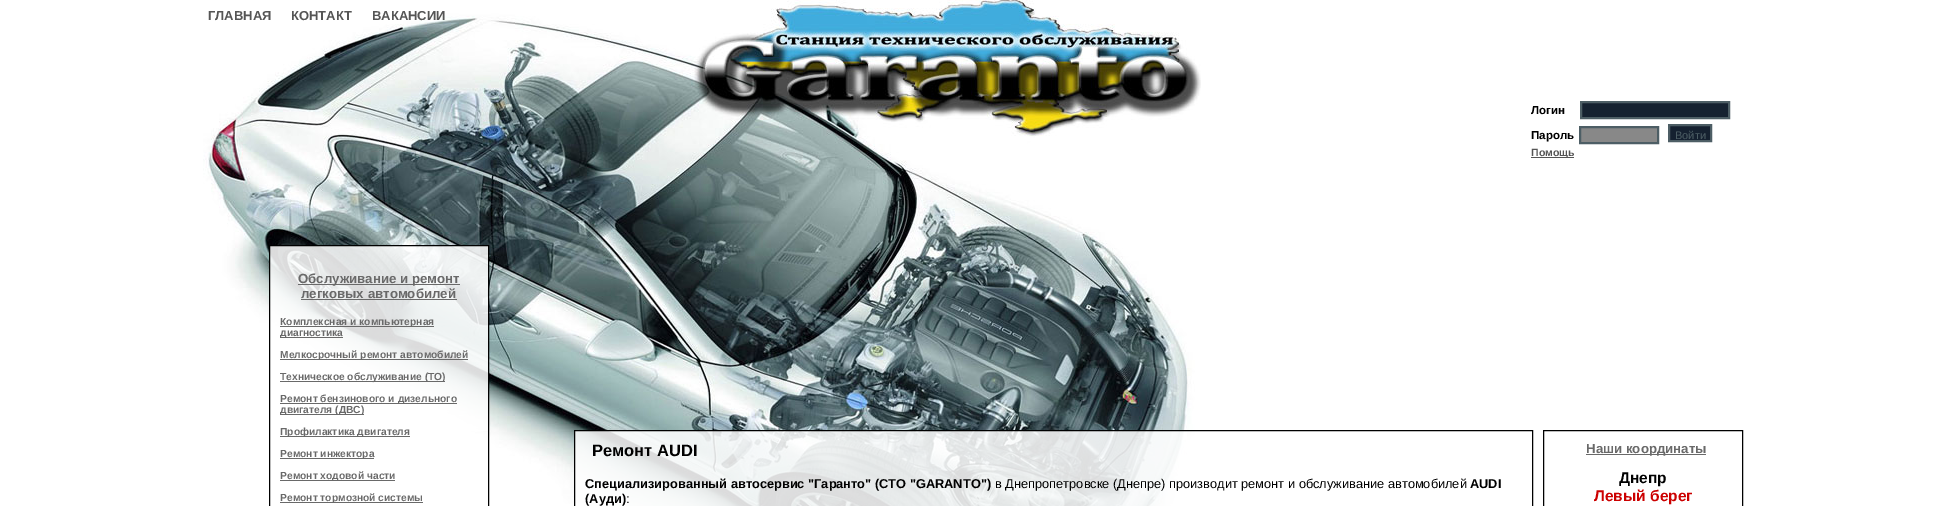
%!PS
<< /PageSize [1949 506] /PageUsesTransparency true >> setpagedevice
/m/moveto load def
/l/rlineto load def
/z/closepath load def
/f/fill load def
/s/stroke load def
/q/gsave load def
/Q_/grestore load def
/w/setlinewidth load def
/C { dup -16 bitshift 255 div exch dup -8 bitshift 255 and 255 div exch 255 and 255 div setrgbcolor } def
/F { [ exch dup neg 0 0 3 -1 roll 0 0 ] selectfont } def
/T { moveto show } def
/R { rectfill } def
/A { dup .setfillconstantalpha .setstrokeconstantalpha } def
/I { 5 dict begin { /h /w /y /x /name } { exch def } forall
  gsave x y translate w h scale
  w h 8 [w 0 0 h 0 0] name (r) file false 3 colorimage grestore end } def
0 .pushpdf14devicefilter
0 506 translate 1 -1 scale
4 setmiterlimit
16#FFFFFF C
0 0 1949 506 R
(1.rgb) 203 0 998 506 I
/LiberationSans-Bold 13 F
16#555555 C
(ГЛАВНАЯ) 208 20 T
(КОНТАКТ) 291 20 T
(ВАКАНСИИ) 372 20 T
/LiberationSans-Bold 11.5 F
16#000000 C
(Логин) 1531 114 T
16#152130 C
1581 102 m 148 0 l 0 16 l -148 0 l z q f Q_
16#4D5E65 C
2 w
s
16#000000 C
(Пароль) 1531 139 T
16#888888 C
1580 127 m 78 0 l 0 16 l -78 0 l z q f Q_
16#4D5E65 C
s
16#152130 C
1669 125 m 42 0 l 0 16 l -42 0 l z q f Q_
16#4D5E65 C
s
/LiberationSans-Regular 11 F
(Войти) 1675 139 T
16#555555 C
1531 157 43 1 R
/LiberationSans-Bold 10.5 F
(Помощь) 1531 156 T
0.86 A
16#FFFFFF C
270 246 218 185 R
1 A
16#000000 C
1 w
269.5 245.5 219 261 rectstroke
16#696969 C
298 284 162 1 R
/LiberationSans-Bold 13.25 F
(Обслуживание и ремонт) 298 283 T
(легковых автомобилей) 301 298 T
301 299 156 1 R
280 326 154 1 R
/LiberationSans-Bold 10.25 F
(Комплексная и компьютерная) 280 325 T
280 337 63 1 R
(диагностика) 280 336 T
280 359 188 1 R
(Мелкосрочный ремонт автомобилей) 280 358 T
280 381 165 1 R
(Техническое обслуживание \(ТО\)) 280 380 T
280 403 177 1 R
(Ремонт бензинового и дизельного) 280 402 T
280 414 84 1 R
(двигателя \(ДВС\)) 280 413 T
280 436 130 1 R
(Профилактика двигателя) 280 435 T
280 458 94 1 R
(Ремонт инжектора) 280 457 T
280 480 115 1 R
(Ремонт ходовой части) 280 479 T
280 502 143 1 R
(Ремонт тормозной системы) 280 501 T
0.86 A
16#FFFFFF C
575 431 612 75 R
1 A
16#000000 C
574.5 430.5 958 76 rectstroke
/LiberationSans-Bold 16.5 F
(Ремонт AUDI) 592 456 T
/LiberationSans-Bold 12.8 F
(Специализированный автосервис "Гаранто" \(СТО "GARANTO"\)) 585 488 T
/LiberationSans-Regular 12.8 F
(в Днепропетровске \(Днепре\) производит ремонт и обслуживание автомобилей) 995 488 T
/LiberationSans-Bold 12.8 F
(AUDI) 1470 488 T
(\(Ауди\)) 585 503 T
/LiberationSans-Regular 12.8 F
(:) 626 503 T
1543.5 430.5 199 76 rectstroke
16#696969 C
1586 454 120 1 R
/LiberationSans-Bold 13.25 F
(Наши координаты) 1586 453 T
/LiberationSans-Bold 15.5 F
16#000000 C
(Днепр) 1619 483 T
16#CC0000 C
(Левый берег) 1594 501 T
.poppdf14devicefilter showpage
